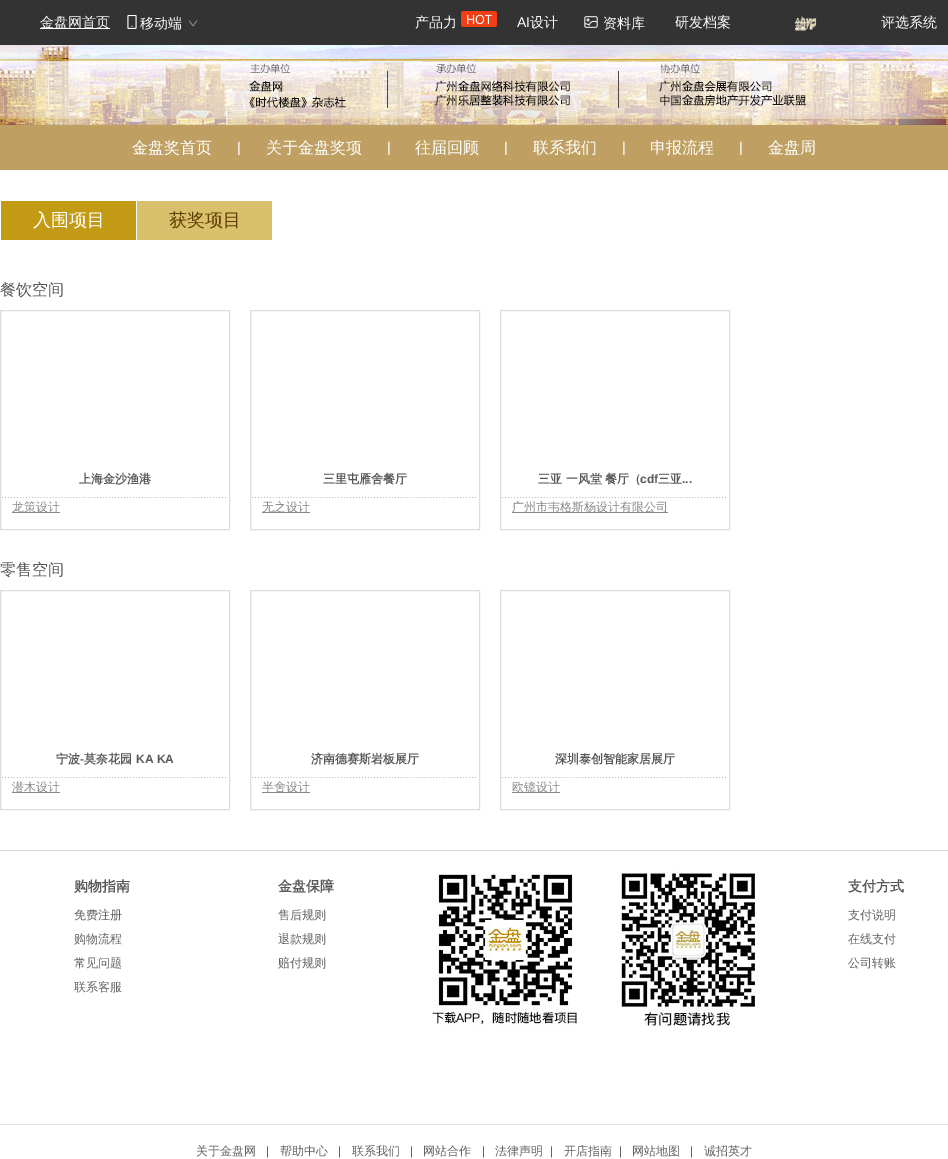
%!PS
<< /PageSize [948 1159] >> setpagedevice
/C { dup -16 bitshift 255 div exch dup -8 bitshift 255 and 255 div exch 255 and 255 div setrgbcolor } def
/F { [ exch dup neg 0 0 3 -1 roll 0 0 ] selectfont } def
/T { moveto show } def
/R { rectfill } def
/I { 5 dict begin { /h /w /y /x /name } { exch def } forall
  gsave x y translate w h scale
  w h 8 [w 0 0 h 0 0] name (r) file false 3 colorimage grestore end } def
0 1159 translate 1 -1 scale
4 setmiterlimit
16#FFFFFF C
0 0 948 1159 R
16#333333 C
0 0 948 45 R
16#FFFFFF C
40 28 70 1 R
/WenQuanYiZenHei-Medium 14 F
(金盘网首页) 40 27 T
(1.rgb) 127 15 10 14 I
(移动端) 140 28 T
(2.rgb) 188 20 10 7 I
(产品力) 415 27 T
(3.rgb) 461 11 36 16 I
/LiberationSans-Regular 14 F
(AI) 517 27 T
/WenQuanYiZenHei-Medium 14 F
(设计) 530 27 T
(4.rgb) 584 16 14 12 I
(资料库) 603 28 T
(研发档案) 675 27 T
(5.rgb) 795 16 22 15 I
(评选系统) 881 27 T
(6.rgb) 0 45 948 80 I
16#C0A062 C
0 125 948 45 R
/WenQuanYiZenHei-Medium 16 F
16#FFFFFF C
(金盘奖首页) 132 153 T
/LiberationSans-Regular 14 F
(|) 237 152 T
/WenQuanYiZenHei-Medium 16 F
(关于金盘奖项) 266 153 T
/LiberationSans-Regular 14 F
(|) 387 152 T
/WenQuanYiZenHei-Medium 16 F
(往届回顾) 415 153 T
/LiberationSans-Regular 14 F
(|) 504 152 T
/WenQuanYiZenHei-Medium 16 F
(联系我们) 533 153 T
/LiberationSans-Regular 14 F
(|) 622 152 T
/WenQuanYiZenHei-Medium 16 F
(申报流程) 650 153 T
/LiberationSans-Regular 14 F
(|) 739 152 T
/WenQuanYiZenHei-Medium 16 F
(金盘周) 768 153 T
16#C39A14 C
1 201 135 39 R
/WenQuanYiZenHei-Medium 18 F
16#FFFFFF C
(入围项目) 33 226 T
16#D9C06C C
137 201 135 39 R
16#603D00 C
(获奖项目) 169 226 T
/WenQuanYiZenHei-Medium 16 F
16#595757 C
(餐饮空间) 0 295 T
16#DDDDDD C
.5 310.5 229 219 rectstroke
/WenQuanYiZenHei-Bold 12 F
16#595757 C
(上海金沙渔港) 79 483 T
(7.rgb) 2 497 224 1 I
16#888888 C
12 512 48 1 R
/WenQuanYiZenHei-Medium 12 F
(龙策设计) 12 511 T
16#DDDDDD C
250.5 310.5 229 219 rectstroke
/WenQuanYiZenHei-Bold 12 F
16#595757 C
(三里屯雁舍餐厅) 323 483 T
(7.rgb) 252 497 224 1 I
16#888888 C
262 512 48 1 R
/WenQuanYiZenHei-Medium 12 F
(无之设计) 262 511 T
16#DDDDDD C
500.5 310.5 229 219 rectstroke
/WenQuanYiZenHei-Bold 12 F
16#595757 C
(三亚 一风堂 餐厅（) 538 483 T
/LiberationSans-Bold 12 F
(cdf) 640 483 T
/WenQuanYiZenHei-Bold 12 F
(三亚) 658 483 T
/LiberationSans-Bold 12 F
(...) 682 483 T
(7.rgb) 502 497 224 1 I
16#888888 C
512 512 156 1 R
/WenQuanYiZenHei-Medium 12 F
(广州市韦格斯杨设计有限公司) 512 511 T
/WenQuanYiZenHei-Medium 16 F
16#595757 C
(零售空间) 0 575 T
16#DDDDDD C
.5 590.5 229 219 rectstroke
/WenQuanYiZenHei-Bold 12 F
16#595757 C
(宁波) 56 763 T
/LiberationSans-Bold 12 F
(-) 80 763 T
/WenQuanYiZenHei-Bold 12 F
(莫奈花园) 84 763 T
/LiberationSans-Bold 12 F
(KA KA) 136 763 T
(7.rgb) 2 777 224 1 I
16#888888 C
12 792 48 1 R
/WenQuanYiZenHei-Medium 12 F
(潜木设计) 12 791 T
16#DDDDDD C
250.5 590.5 229 219 rectstroke
/WenQuanYiZenHei-Bold 12 F
16#595757 C
(济南德赛斯岩板展厅) 311 763 T
(7.rgb) 252 777 224 1 I
16#888888 C
262 792 48 1 R
/WenQuanYiZenHei-Medium 12 F
(半舍设计) 262 791 T
16#DDDDDD C
500.5 590.5 229 219 rectstroke
/WenQuanYiZenHei-Bold 12 F
16#595757 C
(深圳泰创智能家居展厅) 555 763 T
(7.rgb) 502 777 224 1 I
16#888888 C
512 792 48 1 R
/WenQuanYiZenHei-Medium 12 F
(欧镱设计) 512 791 T
16#D8D8D8 C
0 850 948 1 R
/WenQuanYiZenHei-Bold 14 F
16#595757 C
(购物指南) 74 891 T
/WenQuanYiZenHei-Medium 12 F
16#626262 C
(免费注册) 74 919 T
(购物流程) 74 943 T
(常见问题) 74 967 T
(联系客服) 74 991 T
/WenQuanYiZenHei-Bold 14 F
16#595757 C
(金盘保障) 278 891 T
/WenQuanYiZenHei-Medium 12 F
16#626262 C
(售后规则) 278 919 T
(退款规则) 278 943 T
(赔付规则) 278 967 T
(8.rgb) 431 871 147 156 I
(9.rgb) 619 871 136 156 I
/WenQuanYiZenHei-Bold 14 F
16#595757 C
(支付方式) 848 891 T
/WenQuanYiZenHei-Medium 12 F
16#626262 C
(支付说明) 848 919 T
(在线支付) 848 943 T
(公司转账) 848 967 T
16#E3E3E3 C
0 1124 948 1 R
16#626262 C
(关于金盘网) 196 1155 T
/LiberationSans-Regular 12 F
(|) 266 1155 T
/WenQuanYiZenHei-Medium 12 F
(帮助中心) 280 1155 T
/LiberationSans-Regular 12 F
(|) 338 1155 T
/WenQuanYiZenHei-Medium 12 F
(联系我们) 352 1155 T
/LiberationSans-Regular 12 F
(|) 410 1155 T
/WenQuanYiZenHei-Medium 12 F
(网站合作) 423 1155 T
/LiberationSans-Regular 12 F
(|) 482 1155 T
/WenQuanYiZenHei-Medium 12 F
(法律声明) 495 1155 T
/LiberationSans-Regular 12 F
(|) 550 1155 T
/WenQuanYiZenHei-Medium 12 F
(开店指南) 564 1155 T
/LiberationSans-Regular 12 F
(|) 619 1155 T
/WenQuanYiZenHei-Medium 12 F
(网站地图) 632 1155 T
/LiberationSans-Regular 12 F
(|) 690 1155 T
/WenQuanYiZenHei-Medium 12 F
(诚招英才) 704 1155 T
showpage
